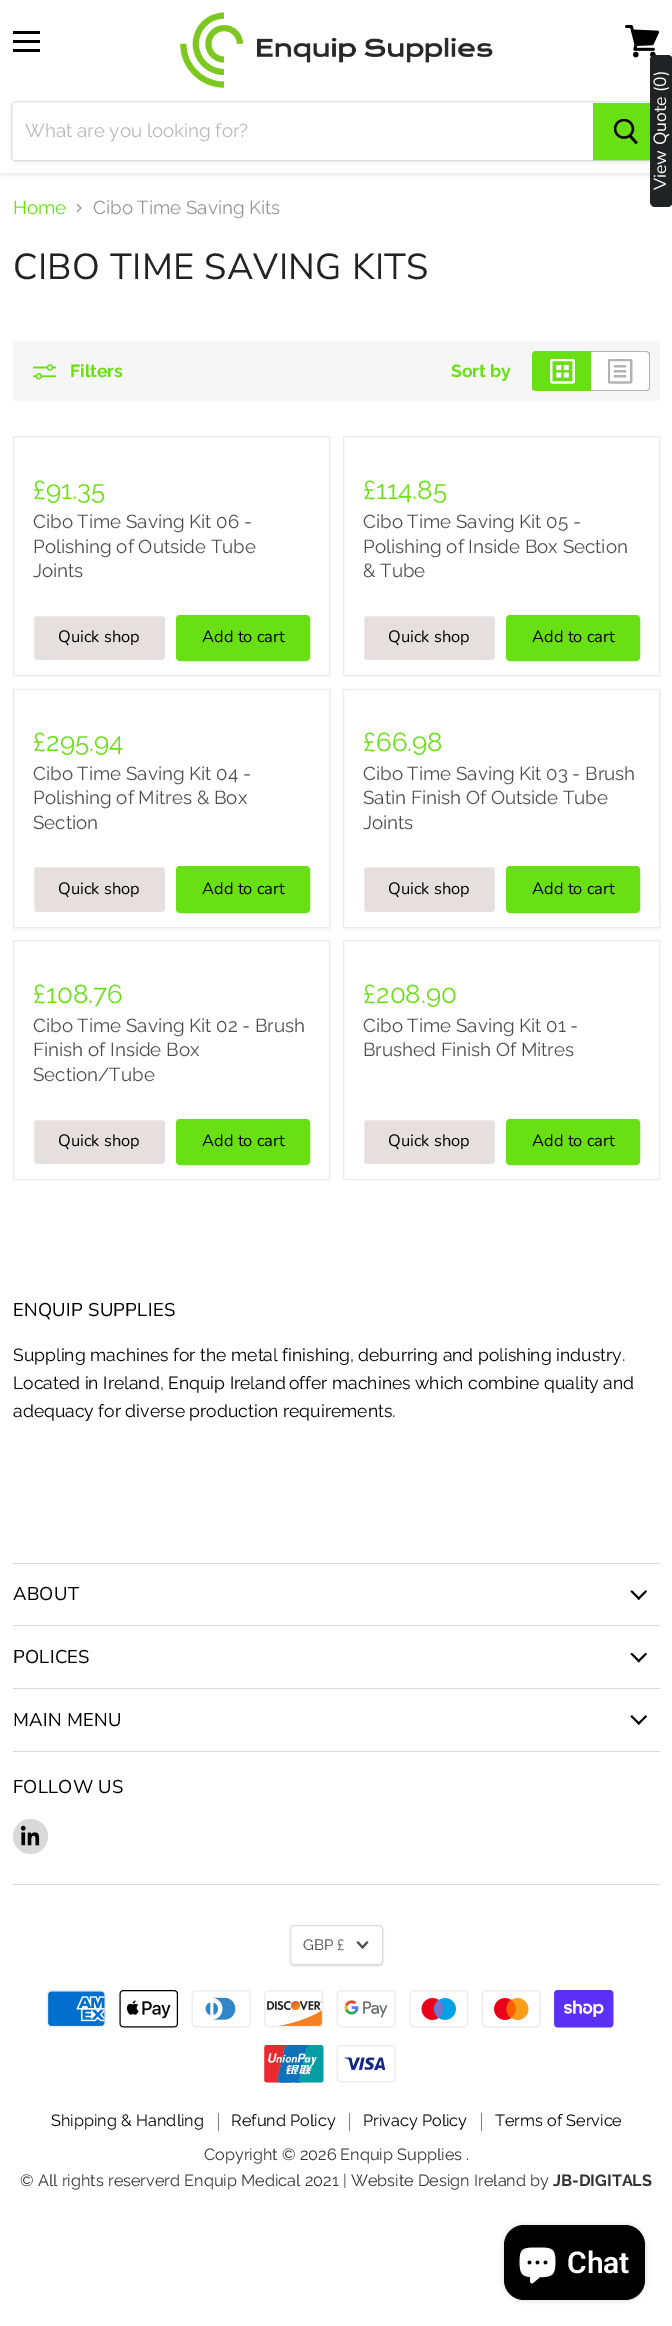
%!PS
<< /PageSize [672 2326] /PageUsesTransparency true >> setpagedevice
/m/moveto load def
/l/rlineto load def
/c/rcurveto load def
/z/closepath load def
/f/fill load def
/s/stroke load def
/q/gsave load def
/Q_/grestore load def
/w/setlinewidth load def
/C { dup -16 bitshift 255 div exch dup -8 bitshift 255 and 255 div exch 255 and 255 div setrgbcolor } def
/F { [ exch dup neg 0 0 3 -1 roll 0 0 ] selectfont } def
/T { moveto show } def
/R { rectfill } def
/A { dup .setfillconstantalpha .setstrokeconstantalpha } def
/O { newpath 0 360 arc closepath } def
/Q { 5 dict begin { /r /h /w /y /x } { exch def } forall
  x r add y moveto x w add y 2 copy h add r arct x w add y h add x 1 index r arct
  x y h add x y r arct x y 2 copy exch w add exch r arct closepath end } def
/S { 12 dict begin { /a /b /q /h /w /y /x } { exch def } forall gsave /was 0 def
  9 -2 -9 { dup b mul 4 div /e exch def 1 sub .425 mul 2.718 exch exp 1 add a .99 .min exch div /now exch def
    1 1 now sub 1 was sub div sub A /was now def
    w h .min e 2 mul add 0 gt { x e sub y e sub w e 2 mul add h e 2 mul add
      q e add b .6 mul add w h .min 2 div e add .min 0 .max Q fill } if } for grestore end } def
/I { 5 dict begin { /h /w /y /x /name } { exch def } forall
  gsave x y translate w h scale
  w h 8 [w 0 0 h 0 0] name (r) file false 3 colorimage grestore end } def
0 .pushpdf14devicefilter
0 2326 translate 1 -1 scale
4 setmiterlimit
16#FFFFFF C
0 0 672 2326 R
16#808080 C
0 1 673 173 0 2.5 .25 S
16#FFFFFF C
0 0 672 173 R
16#000000 C
13 31 27 3 R
13 40 27 3 R
13 49 27 3 R
(1.rgb) 625 25 35 33 I
(2.rgb) 180 12 313 76 I
16#808080 C
11 104 650 60 5 2 .11 S
0.2 A
11.5 101.5 649 59 4.5 Q s
1 A
16#FFFFFF C
13 103 580 57 R
/Raleway-Regular 18.75 F
16#B8B8B8 C
(What are you looking for?) 25 137 T
16#69E014 C
594 104 56 55 R
593.5 103.5 66 56 rectstroke
(3.rgb) 614 119 24 26 I
16#202223 C
650 202 m 0 -142 l 0 -3 2 -5 5 -5 c 13 0 l 2 0 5 2 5 5 c 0 142 l 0 2 -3 5 -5 5 c -13 0 l -3 0 -5 -3 -5 -5 c z f
/Nunito-Regular 17.5 F
16#FFFFFF C
q 666 190 translate -90 rotate 0 0 m (View Quote \(0\)) show Q_
/Raleway-Regular 18.75 F
16#69E014 C
(Home) 13 214 T
(4.rgb) 76 203 6 10 I
16#949494 C
(Cibo Time Saving Kits) 93 214 T
/NunitoSans-Regular 36.1 F
16#222222 C
13 279 m .4 0 (CIBO TIME SAVING KITS) ashow
16#F6F6F6 C
13 341 647 60 R
(5.rgb) 33 364 23 16 I
/Raleway-Bold 17.6 F
16#69E014 C
(Filters) 70 377 T
(Sort by) 451 377 T
537 351 m 54 0 l 0 40 l -54 0 l -2 0 -4 -2 -4 -4 c 0 -32 l 0 -2 2 -4 4 -4 c z f
536 351 m 55 0 l 0 40 l -55 0 l -2 0 -4 -1 -4 -3 c 0 -33 l 0 -2 2 -4 4 -4 c z 536 352 m 55 0 l 0 38 l -55 0 l -1 0 -2 -1 -2 -2 c 0 -33 l 0 -1 1 -3 2 -3 c z eofill
(6.rgb) 550 359 25 25 I
16#FFFFFF C
591 351 m 55 0 l 2 0 4 2 4 4 c 0 32 l 0 2 -2 4 -4 4 c -55 0 l z f
16#B3B3B3 C
591 351 m 55 0 l 2 0 4 2 4 4 c 0 33 l 0 2 -2 3 -4 3 c -55 0 l z 591 352 m 55 0 l 2 0 3 2 3 3 c 0 33 l 0 1 -1 2 -3 2 c -55 0 l z eofill
(7.rgb) 608 359 25 25 I
16#EAEAEA C
13.5 436.5 316 239 rectstroke
/Raleway-Regular 26 F
16#69E014 C
(£91.35) 33 499 T
/Raleway-Regular 18.75 F
16#4D4D4D C
(Cibo Time Saving Kit 06 -) 33 528 T
(Polishing of Outside Tube) 33 553 T
(Joints) 33 577 T
16#E5DFDF C
33.5 615.5 132 45 3.5 Q q f Q_
16#FFFFFF C
s
/Nunito-Regular 16.5 F
16#000000 C
(Quick shop) 58 642 T
16#69E014 C
176.5 615.5 133 45 3.5 Q q f Q_
s
16#000000 C
(Add to cart) 202 642 T
16#EAEAEA C
343.5 436.5 316 239 rectstroke
/Raleway-Regular 26 F
16#69E014 C
(£114.85) 363 499 T
/Raleway-Regular 18.75 F
16#4D4D4D C
(Cibo Time Saving Kit 05 -) 363 528 T
(Polishing of Inside Box Section) 363 553 T
(& Tube) 363 577 T
16#E5DFDF C
363.5 615.5 132 45 3.5 Q q f Q_
16#FFFFFF C
s
/Nunito-Regular 16.5 F
16#000000 C
(Quick shop) 388 642 T
16#69E014 C
506.5 615.5 133 45 3.5 Q q f Q_
s
16#000000 C
(Add to cart) 532 642 T
16#808080 C
13 690 317 239 0 2.5 .11 S
16#FFFFFF C
13.5 689.5 m 316 0 l 0 238 l -316 0 l z q f Q_
16#EBEBEB C
s
/Raleway-Regular 26 F
16#69E014 C
(£295.94) 33 751 T
/Raleway-Regular 18.75 F
16#4D4D4D C
(Cibo Time Saving Kit 04 -) 33 780 T
(Polishing of Mitres & Box) 33 804 T
(Section) 33 829 T
16#E5DFDF C
33.5 866.5 132 46 3.5 Q q f Q_
16#FFFFFF C
s
/Nunito-Regular 16.5 F
16#000000 C
(Quick shop) 58 894 T
16#69E014 C
176.5 866.5 133 46 3.5 Q q f Q_
s
16#000000 C
(Add to cart) 202 894 T
16#808080 C
343 690 317 239 0 2.5 .11 S
16#FFFFFF C
343.5 689.5 m 316 0 l 0 238 l -316 0 l z q f Q_
16#EBEBEB C
s
/Raleway-Regular 26 F
16#69E014 C
(£66.98) 363 751 T
/Raleway-Regular 18.75 F
16#4D4D4D C
(Cibo Time Saving Kit 03 - Brush) 363 780 T
(Satin Finish Of Outside Tube) 363 804 T
(Joints) 363 829 T
16#E5DFDF C
363.5 866.5 132 46 3.5 Q q f Q_
16#FFFFFF C
s
/Nunito-Regular 16.5 F
16#000000 C
(Quick shop) 388 894 T
16#69E014 C
506.5 866.5 133 46 3.5 Q q f Q_
s
16#000000 C
(Add to cart) 532 894 T
16#EBEBEB C
13.5 940.5 316 239 rectstroke
/Raleway-Regular 26 F
16#69E014 C
(£108.76) 33 1003 T
/Raleway-Regular 18.75 F
16#4D4D4D C
(Cibo Time Saving Kit 02 - Brush) 33 1032 T
(Finish of Inside Box) 33 1056 T
(Section/Tube) 33 1081 T
16#E5DFDF C
33.5 1119.5 132 45 3.5 Q q f Q_
16#FFFFFF C
s
/Nunito-Regular 16.5 F
16#000000 C
(Quick shop) 58 1146 T
16#69E014 C
176.5 1119.5 133 45 3.5 Q q f Q_
s
16#000000 C
(Add to cart) 202 1146 T
16#EBEBEB C
343.5 940.5 316 239 rectstroke
/Raleway-Regular 26 F
16#69E014 C
(£208.90) 363 1003 T
/Raleway-Regular 18.75 F
16#4D4D4D C
(Cibo Time Saving Kit 01 -) 363 1032 T
(Brushed Finish Of Mitres) 363 1056 T
16#E5DFDF C
363.5 1119.5 132 45 3.5 Q q f Q_
16#FFFFFF C
s
/Nunito-Regular 16.5 F
16#000000 C
(Quick shop) 388 1146 T
16#69E014 C
506.5 1119.5 133 45 3.5 Q q f Q_
s
16#000000 C
(Add to cart) 532 1146 T
16#D9D9D9 C
13 1563 647 1 R
/NunitoSans-Regular 18.5 F
16#000000 C
13 1316 m .25 0 (ENQUIP SUPPLIES) ashow
/Raleway-Regular 17.6 F
(Suppling machines for the metal finishing, deburring and polishing industry.) 13 1361 T
(Located in Ireland, Enquip Ireland) 13 1389 T
(offer machines which combine quality and) 289 1389 T
(adequacy for diverse production requirements.) 13 1417 T
16#D9D9D9 C
13 1625 647 1 R
/NunitoSans-Regular 18.5 F
16#000000 C
13 1600 m .25 0 (ABOUT) ashow
(8.rgb) 630 1590 18 10 I
16#D9D9D9 C
13 1688 647 1 R
16#000000 C
13 1663 m .25 0 (POLICES) ashow
(9.rgb) 630 1653 18 10 I
16#D9D9D9 C
13 1751 647 1 R
16#000000 C
13 1726 m .25 0 (MAIN MENU) ashow
(8.rgb) 630 1715 18 10 I
16#D9D9D9 C
13 1884 647 1 R
16#000000 C
13 1793 m .25 0 (FOLLOW US) ashow
16#D9D9D9 C
30.5 1836.5 17.5 O f
(10.rgb) 20 1825 20 21 I
16#000000 C
290 1926 93 40 4 1 .15 S
16#FFFFFF C
290.5 1925.5 92 39 3.5 Q q f Q_
16#DDDDDD C
s
/Raleway-Regular 15 F
16#4D4D4D C
(GBP £) 303 1950 T
2 w
2 setlinecap
362.5 1947.5 m 4.5 -5 l 362.5 1947.5 m -4.5 -5 l s
(11.rgb) 46 1990 60 38 I
(12.rgb) 119 1990 60 38 I
(13.rgb) 191 1990 60 38 I
(14.rgb) 264 1990 60 38 I
(15.rgb) 336 1990 60 38 I
(16.rgb) 409 1990 60 38 I
(17.rgb) 481 1990 60 38 I
(18.rgb) 554 1990 60 38 I
(19.rgb) 264 2045 60 38 I
(20.rgb) 336 2045 60 38 I
16#808080 C
218 2113 1 18 R
/Raleway-Regular 16.25 F
16#000000 C
(Shipping & Handling) 51 2126 T
16#808080 C
349 2113 1 18 R
16#000000 C
(Refund Policy) 231 2126 T
16#808080 C
481 2113 1 18 R
16#000000 C
(Privacy Policy) 363 2126 T
(Terms of Service) 495 2126 T
16#333333 C
(Copyright © 2026 Enquip Supplies .) 204 2160 T
(© All rights reserverd Enquip Medical 2021 | Website Design Ireland by) 20 2186 T
/Raleway-Bold 16.25 F
(JB-DIGITALS) 553 2186 T
16#000000 C
504 2225 141 75 20 3 .15 S
504 2225 141 75 20 Q f
(21.rgb) 519 2247 37 37 I
/Roboto-SemiBold 30 F
16#FFFFFF C
(Chat) 567 2273 T
.poppdf14devicefilter showpage
